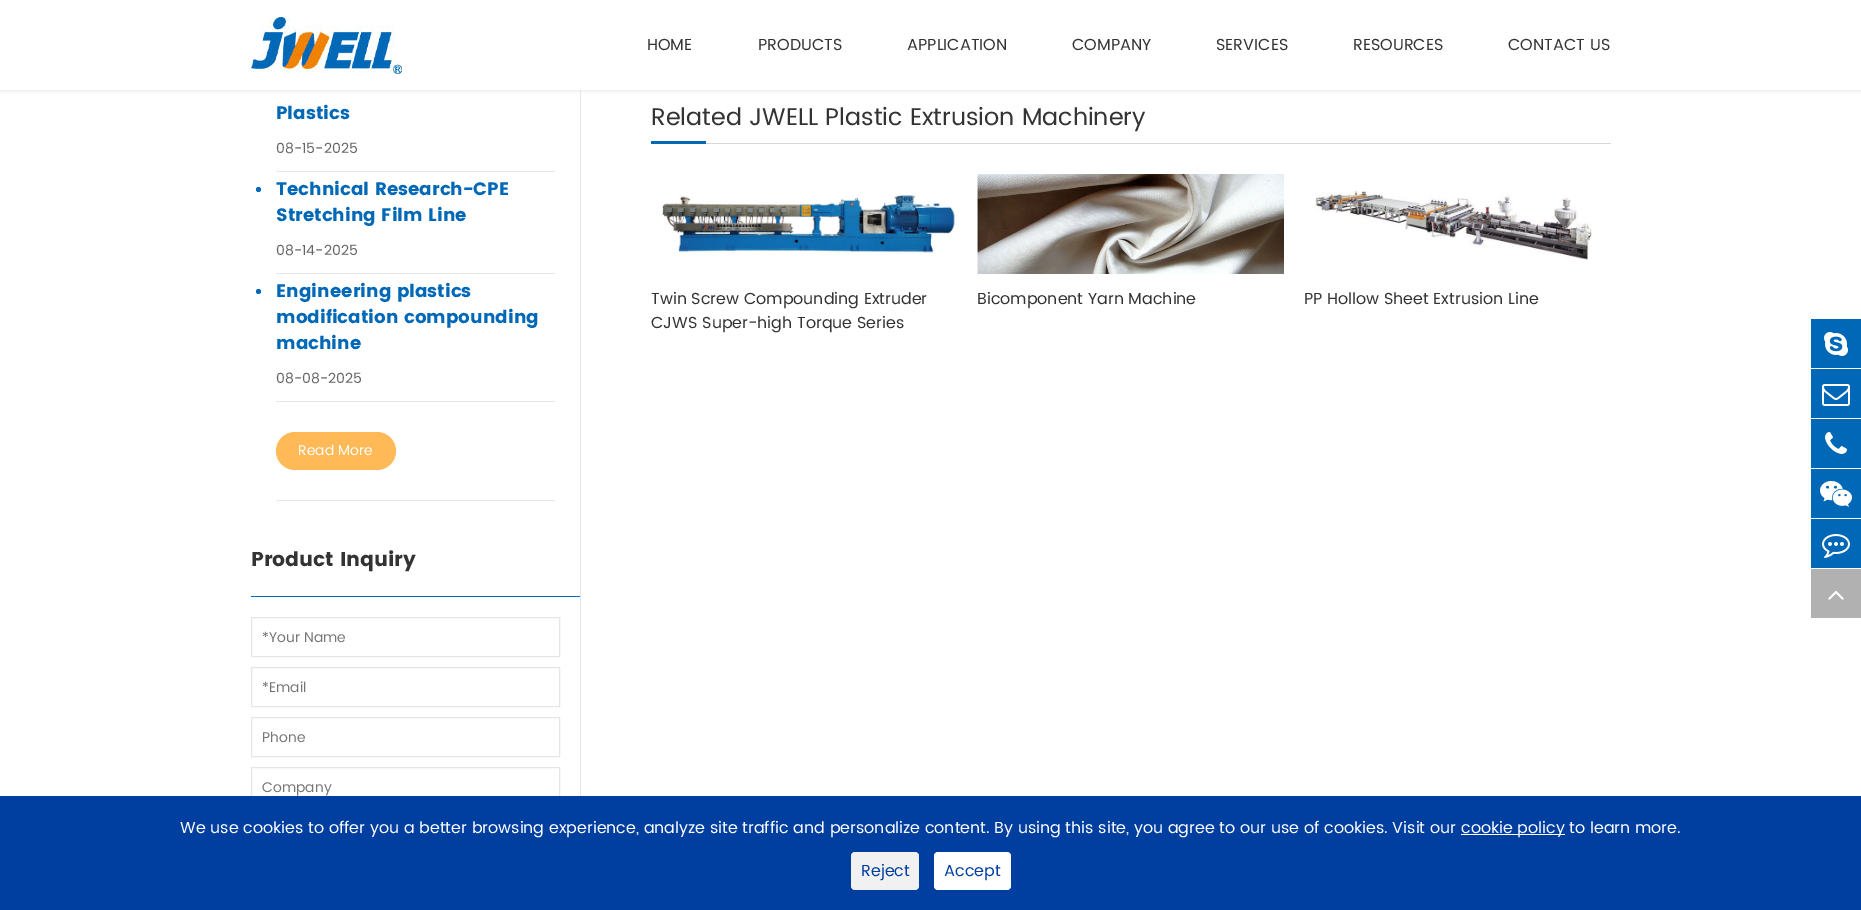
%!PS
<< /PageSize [1861 910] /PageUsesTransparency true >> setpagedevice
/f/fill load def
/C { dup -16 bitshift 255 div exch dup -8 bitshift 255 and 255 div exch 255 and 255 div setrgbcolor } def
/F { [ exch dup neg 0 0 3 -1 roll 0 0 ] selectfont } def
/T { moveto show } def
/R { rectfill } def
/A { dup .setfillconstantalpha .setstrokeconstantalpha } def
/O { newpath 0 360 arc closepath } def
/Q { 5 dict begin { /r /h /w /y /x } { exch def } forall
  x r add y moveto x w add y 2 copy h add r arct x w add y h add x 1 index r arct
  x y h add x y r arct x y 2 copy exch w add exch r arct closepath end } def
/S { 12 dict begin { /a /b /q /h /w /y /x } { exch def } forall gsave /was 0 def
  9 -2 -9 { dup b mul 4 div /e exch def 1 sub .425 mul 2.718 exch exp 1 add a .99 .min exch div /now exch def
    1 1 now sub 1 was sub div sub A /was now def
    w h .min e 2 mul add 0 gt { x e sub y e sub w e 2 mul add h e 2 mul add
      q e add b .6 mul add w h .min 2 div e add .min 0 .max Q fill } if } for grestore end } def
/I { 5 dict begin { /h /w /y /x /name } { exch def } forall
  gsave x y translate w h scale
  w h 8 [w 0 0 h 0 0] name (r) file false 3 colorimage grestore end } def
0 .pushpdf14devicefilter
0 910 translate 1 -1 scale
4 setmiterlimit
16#FFFFFF C
0 0 1861 910 R
16#E6E6E6 C
580 90 1 706 R
16#DCDCDC C
0 0 1861 90 0 2.5 1 S
16#FFFFFF C
0 0 1861 90 R
(1.rgb) 251 17 151 57 I
/Poppins-Regular 16 F
16#333333 C
(HOME) 647 50 T
(PRODUCTS) 758 50 T
(APPLICATION) 907 50 T
(COMPANY) 1072 50 T
(SERVICES) 1216 50 T
(RESOURCES) 1353 50 T
(CONTACT US) 1508 50 T
16#E6E6E6 C
276 171 279 1 R
/Poppins-Bold 18 F
16#0068B7 C
(Plastics) 276 119 T
/Poppins-Regular 14 F
16#666666 C
(08-15-2025) 276 153 T
16#E6E6E6 C
276 273 279 1 R
16#0068B7 C
258.5 189.5 2.5 O f
/Poppins-Bold 18 F
(Technical Research-CPE) 276 195 T
(Stretching Film Line) 276 221 T
/Poppins-Regular 14 F
16#666666 C
(08-14-2025) 276 255 T
16#E6E6E6 C
276 401 279 1 R
16#0068B7 C
258.5 291.5 2.5 O f
/Poppins-Bold 18 F
(Engineering plastics) 276 297 T
(modification compounding) 276 323 T
(machine) 276 349 T
/Poppins-Regular 14 F
16#666666 C
(08-08-2025) 276 383 T
16#E6E6E6 C
276 500 279 1 R
16#FFB957 C
276 432 120 38 19 Q f
16#FFFFFF C
(Read More) 298 455 T
16#0068B7 C
251 596 329 1 R
/Poppins-Bold 20 F
16#333333 C
(Product Inquiry) 251 566 T
16#E6E6E6 C
251.5 617.5 308 39 rectstroke
/Poppins-Regular 14 F
16#757575 C
(*Your Name) 262 642 T
16#E6E6E6 C
251.5 667.5 308 39 rectstroke
16#757575 C
(*Email) 262 692 T
16#E6E6E6 C
251.5 717.5 308 39 rectstroke
16#757575 C
(Phone) 262 742 T
16#E6E6E6 C
251.5 767.5 308 39 rectstroke
16#757575 C
(Company) 262 792 T
16#D8D8D8 C
706 143 905 1 R
/Poppins-Regular 24 F
16#333333 C
(Related JWELL Plastic Extrusion Machinery) 651 125 T
16#0068B7 C
651 141 55 3 R
(2.rgb) 662 195 294 59 I
/Poppins-Regular 16 F
16#333333 C
(Twin Screw Compounding Extruder) 651 304 T
(CJWS Super-high Torque Series) 651 328 T
(3.rgb) 977 174 307 100 I
(Bicomponent Yarn Machine) 977 304 T
(4.rgb) 1315 191 277 69 I
(PP Hollow Sheet Extrusion Line) 1304 304 T
16#0068B7 C
1811 319 50 49 R
(5.rgb) 1824 332 24 24 I
1811 369 50 49 R
(6.rgb) 1822 384 28 22 I
1811 419 50 49 R
(7.rgb) 1825 432 22 22 I
1811 469 50 49 R
(8.rgb) 1820 481 32 26 I
1811 519 50 49 R
(9.rgb) 1822 534 28 24 I
16#B1B1B1 C
1811 569 50 49 R
(10.rgb) 1828 590 16 10 I
16#003EA0 C
0 796 1861 114 R
16#FFFFFF C
(We use cookies to offer you a better browsing experience, analyze site traffic and personalize content. By using this site, you agree to our use of cookies. Visit our) 180 833 T
1461 834 104 1 R
(cookie policy to learn more.) 1461 833 T
16#F1F1F1 C
851 852 68 38 4 Q f
16#003EA0 C
(Reject) 861 876 T
16#FFFFFF C
934 852 77 38 4 Q f
16#003EA0 C
(Accept) 944 876 T
.poppdf14devicefilter showpage
